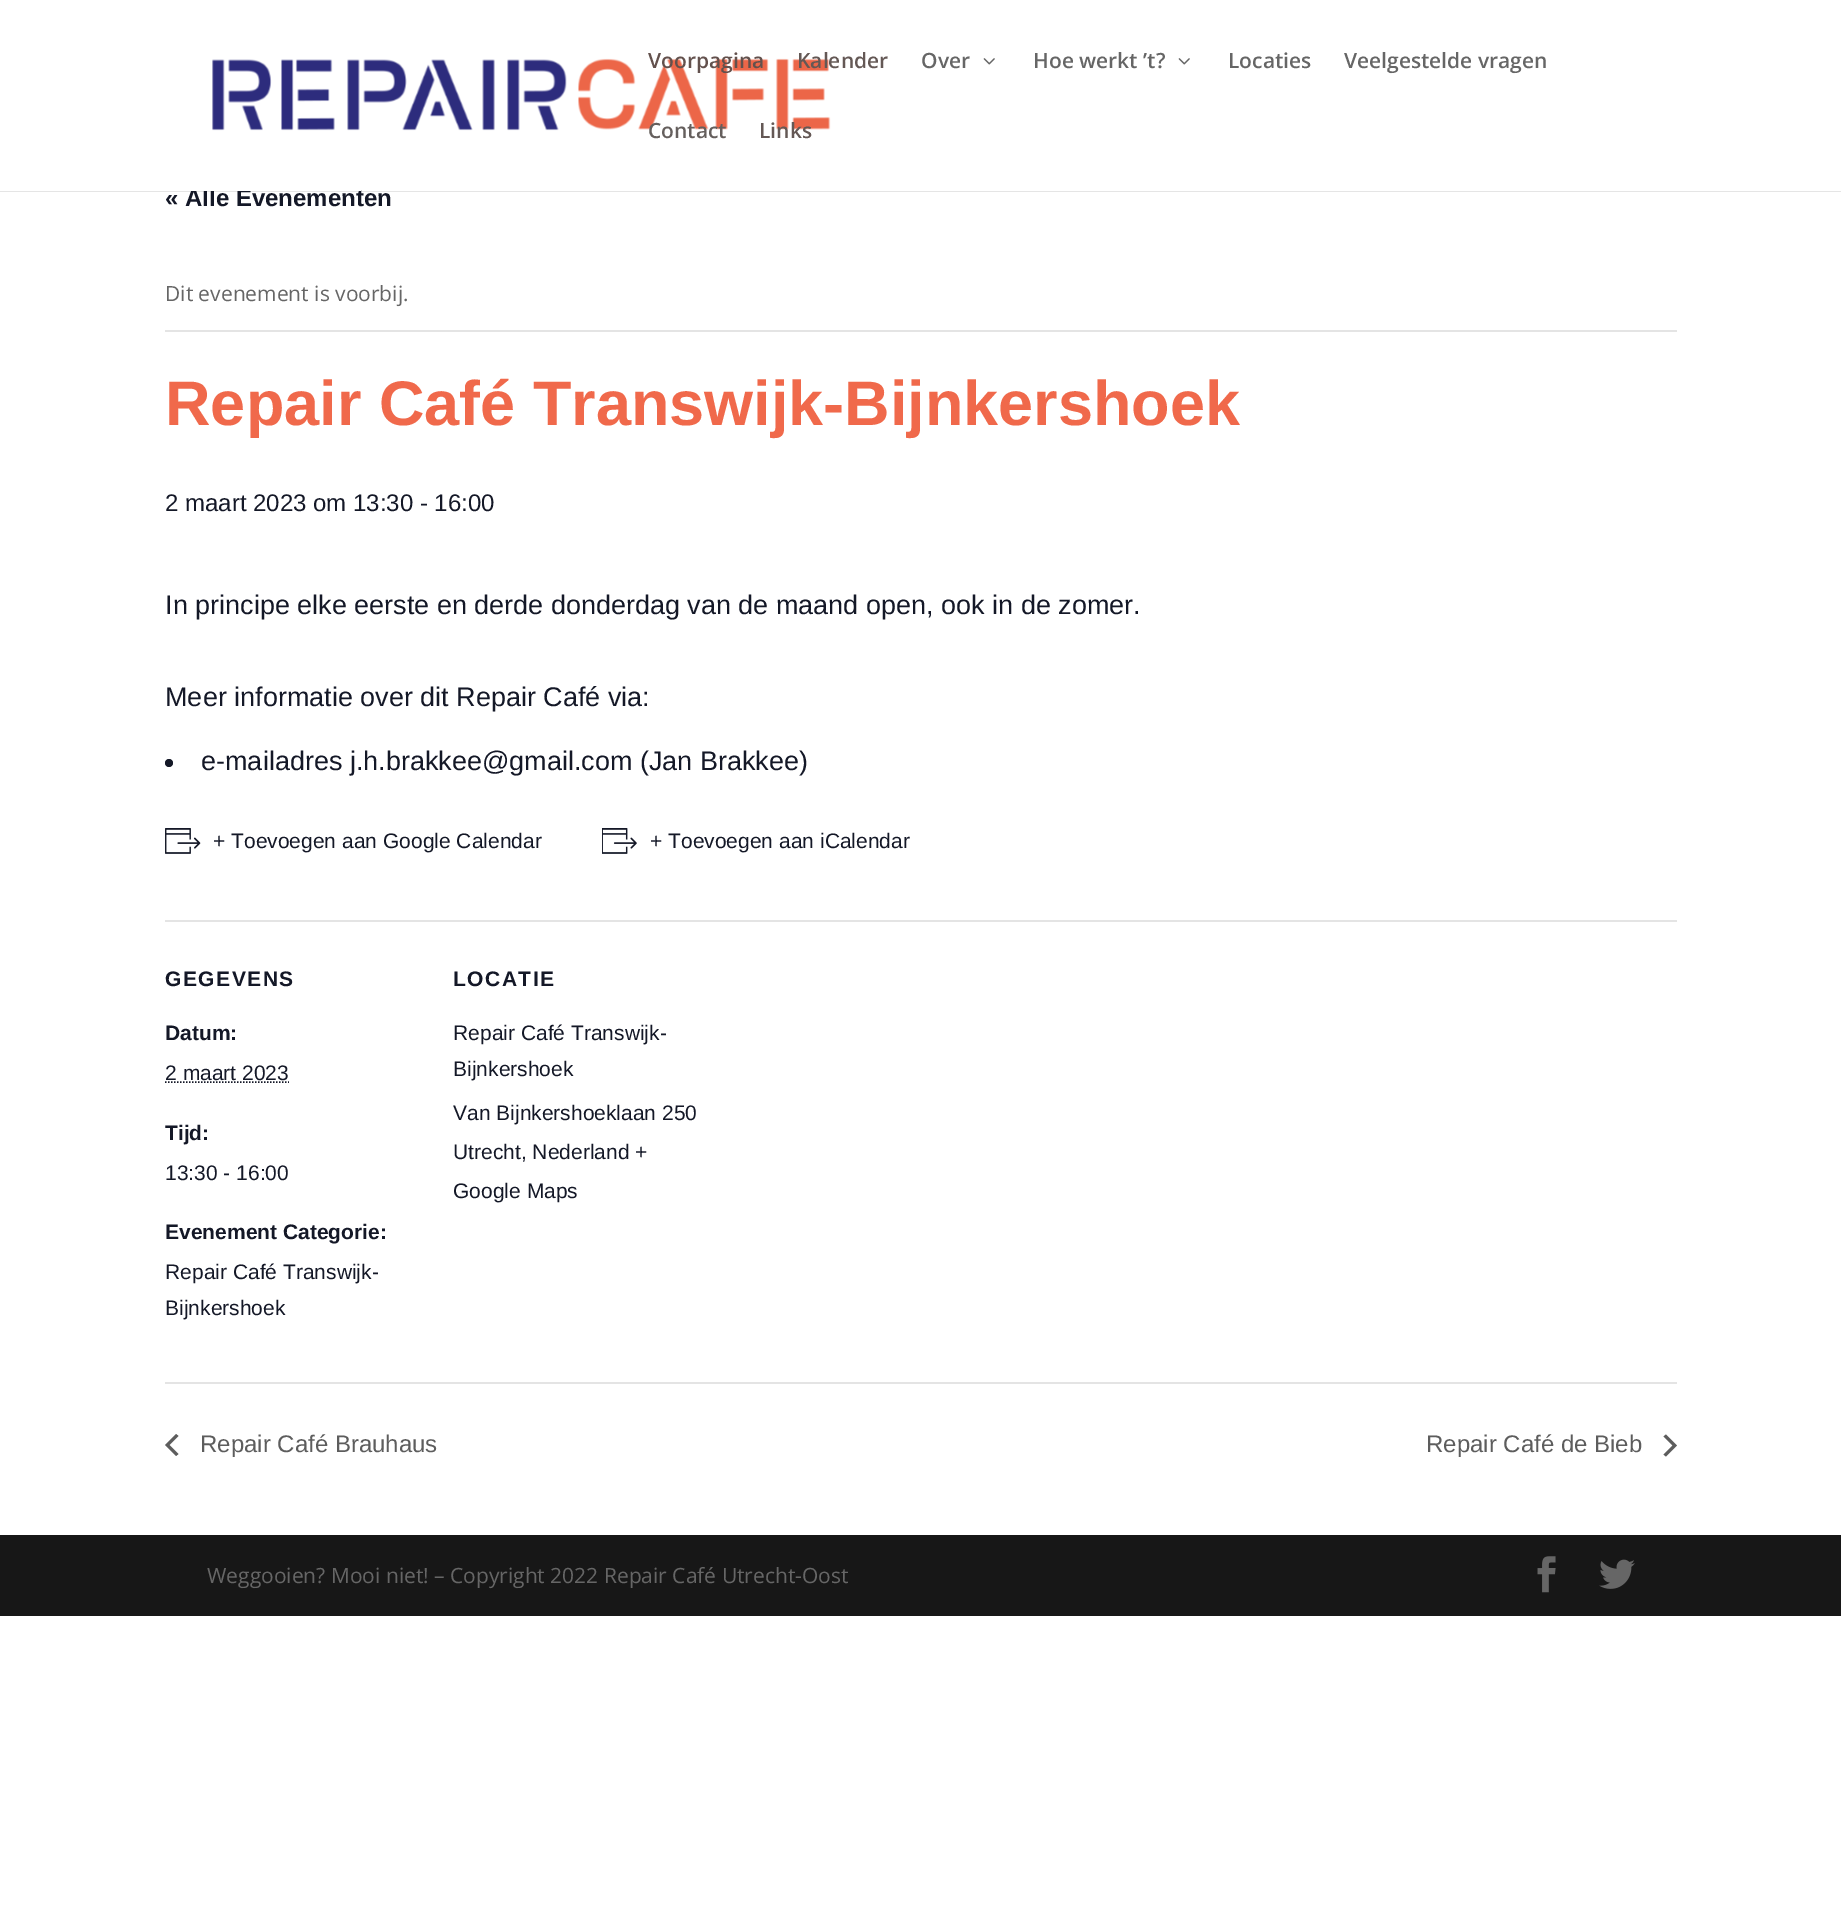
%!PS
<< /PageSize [1841 1926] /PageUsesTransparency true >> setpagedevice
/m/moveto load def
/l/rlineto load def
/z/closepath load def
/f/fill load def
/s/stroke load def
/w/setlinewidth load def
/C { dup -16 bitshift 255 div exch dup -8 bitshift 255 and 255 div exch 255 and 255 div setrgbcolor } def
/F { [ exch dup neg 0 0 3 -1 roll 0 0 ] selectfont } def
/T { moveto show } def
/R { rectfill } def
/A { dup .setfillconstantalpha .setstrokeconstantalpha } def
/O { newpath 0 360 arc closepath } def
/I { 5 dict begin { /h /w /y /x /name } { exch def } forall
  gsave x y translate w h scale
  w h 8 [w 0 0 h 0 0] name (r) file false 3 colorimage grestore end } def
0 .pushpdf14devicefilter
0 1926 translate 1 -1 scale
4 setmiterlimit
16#FFFFFF C
0 0 1841 1926 R
0.1 A
16#000000 C
0 191 1841 1 R
/LiberationSans-Bold 24 F
1 A
16#141827 C
(« Alle Evenementen) 165 206 T
16#FFFFFF C
191 188 170 3 R
(1.rgb) 212 58 619 73 I
/OpenSans-SemiBold 21 F
16#63514D C
(Voorpagina) 648 68 T
16#645855 C
(Kalender) 797 68 T
16#666666 C
(Over) 921 68 T
(2.rgb) 983 58 12 7 I
(Hoe werkt ’t?) 1033 68 T
(2.rgb) 1178 58 12 7 I
(Locaties) 1228 68 T
(Veelgestelde vragen) 1344 68 T
16#655F5D C
(Contact) 648 138 T
16#645855 C
(Links) 759 138 T
16#E4E4E4 C
165 330 1512 2 R
/OpenSans-Regular 21 F
16#666666 C
(Dit evenement is voorbij.) 165 301 T
/LiberationSans-Bold 63 F
16#F0694B C
(Repair Café Transwijk-Bijnkershoek) 165 425 T
/LiberationSans-Regular 24 F
16#141827 C
(2 maart 2023 om 13:30 - 16:00) 165 511 T
/LiberationSans-Regular 27 F
(In principe elke eerste en derde donderdag van de maand open, ook in de zomer.) 165 614 T
(Meer informatie over dit Repair Café via:) 165 706 T
169 763 4 O f
(e-mailadres j.h.brakkee@gmail.com \(Jan Brakkee\)) 201 770 T
(3.rgb) 165 828 36 26 I
/LiberationSans-Regular 21 F
(+ Toevoegen aan Google Calendar) 213 848 T
(4.rgb) 602 828 35 26 I
(+ Toevoegen aan iCalendar) 650 848 T
16#E4E4E4 C
165 920 1512 2 R
/LiberationSans-Bold 21 F
16#141827 C
165 986 m 1.5 0 (GEGEVENS) ashow
(Datum:) 165 1040 T
/LiberationSans-Regular 21 F
(2 maart 2023) 165 1080 T
1.5 w
[1.5 1.5] 0 setdash
165 1082 m 124 0 l s
/LiberationSans-Bold 21 F
(Tijd:) 165 1140 T
/LiberationSans-Regular 21 F
(13:30 - 16:00) 165 1180 T
/LiberationSans-Bold 21 F
(Evenement Categorie:) 165 1239 T
/LiberationSans-Regular 21 F
(Repair Café Transwijk-) 165 1279 T
(Bijnkershoek) 165 1315 T
/LiberationSans-Bold 21 F
453 986 m 1.5 0 (LOCATIE) ashow
/LiberationSans-Regular 21 F
(Repair Café Transwijk-) 453 1040 T
(Bijnkershoek) 453 1076 T
(Van Bijnkershoeklaan 250) 453 1120 T
(Utrecht, Nederland +) 453 1159 T
(Google Maps) 453 1198 T
16#E4E4E4 C
165 1382 1512 2 R
16#5D5D5D C
178.5 1454 m -2.5 2 l -11 -11 l 11 -11 l 2.5 2 l -9 9 l z f
/LiberationSans-Regular 24 F
(Repair Café Brauhaus) 200 1452 T
(Repair Café de Bieb) 1426 1452 T
1663.5 1436.5 m 2.5 -2 l 11 11 l -11 11 l -2.5 -2 l 9 -9 l z f
16#171717 C
0 1535 1841 81 R
/OpenSans-Regular 21 F
16#666666 C
(Weggooien? Mooi niet! – Copyright 2022 Repair Café Utrecht-Oost) 207 1583 T
(5.rgb) 1537 1556 19 37 I
(6.rgb) 1599 1559 36 30 I
.poppdf14devicefilter showpage
